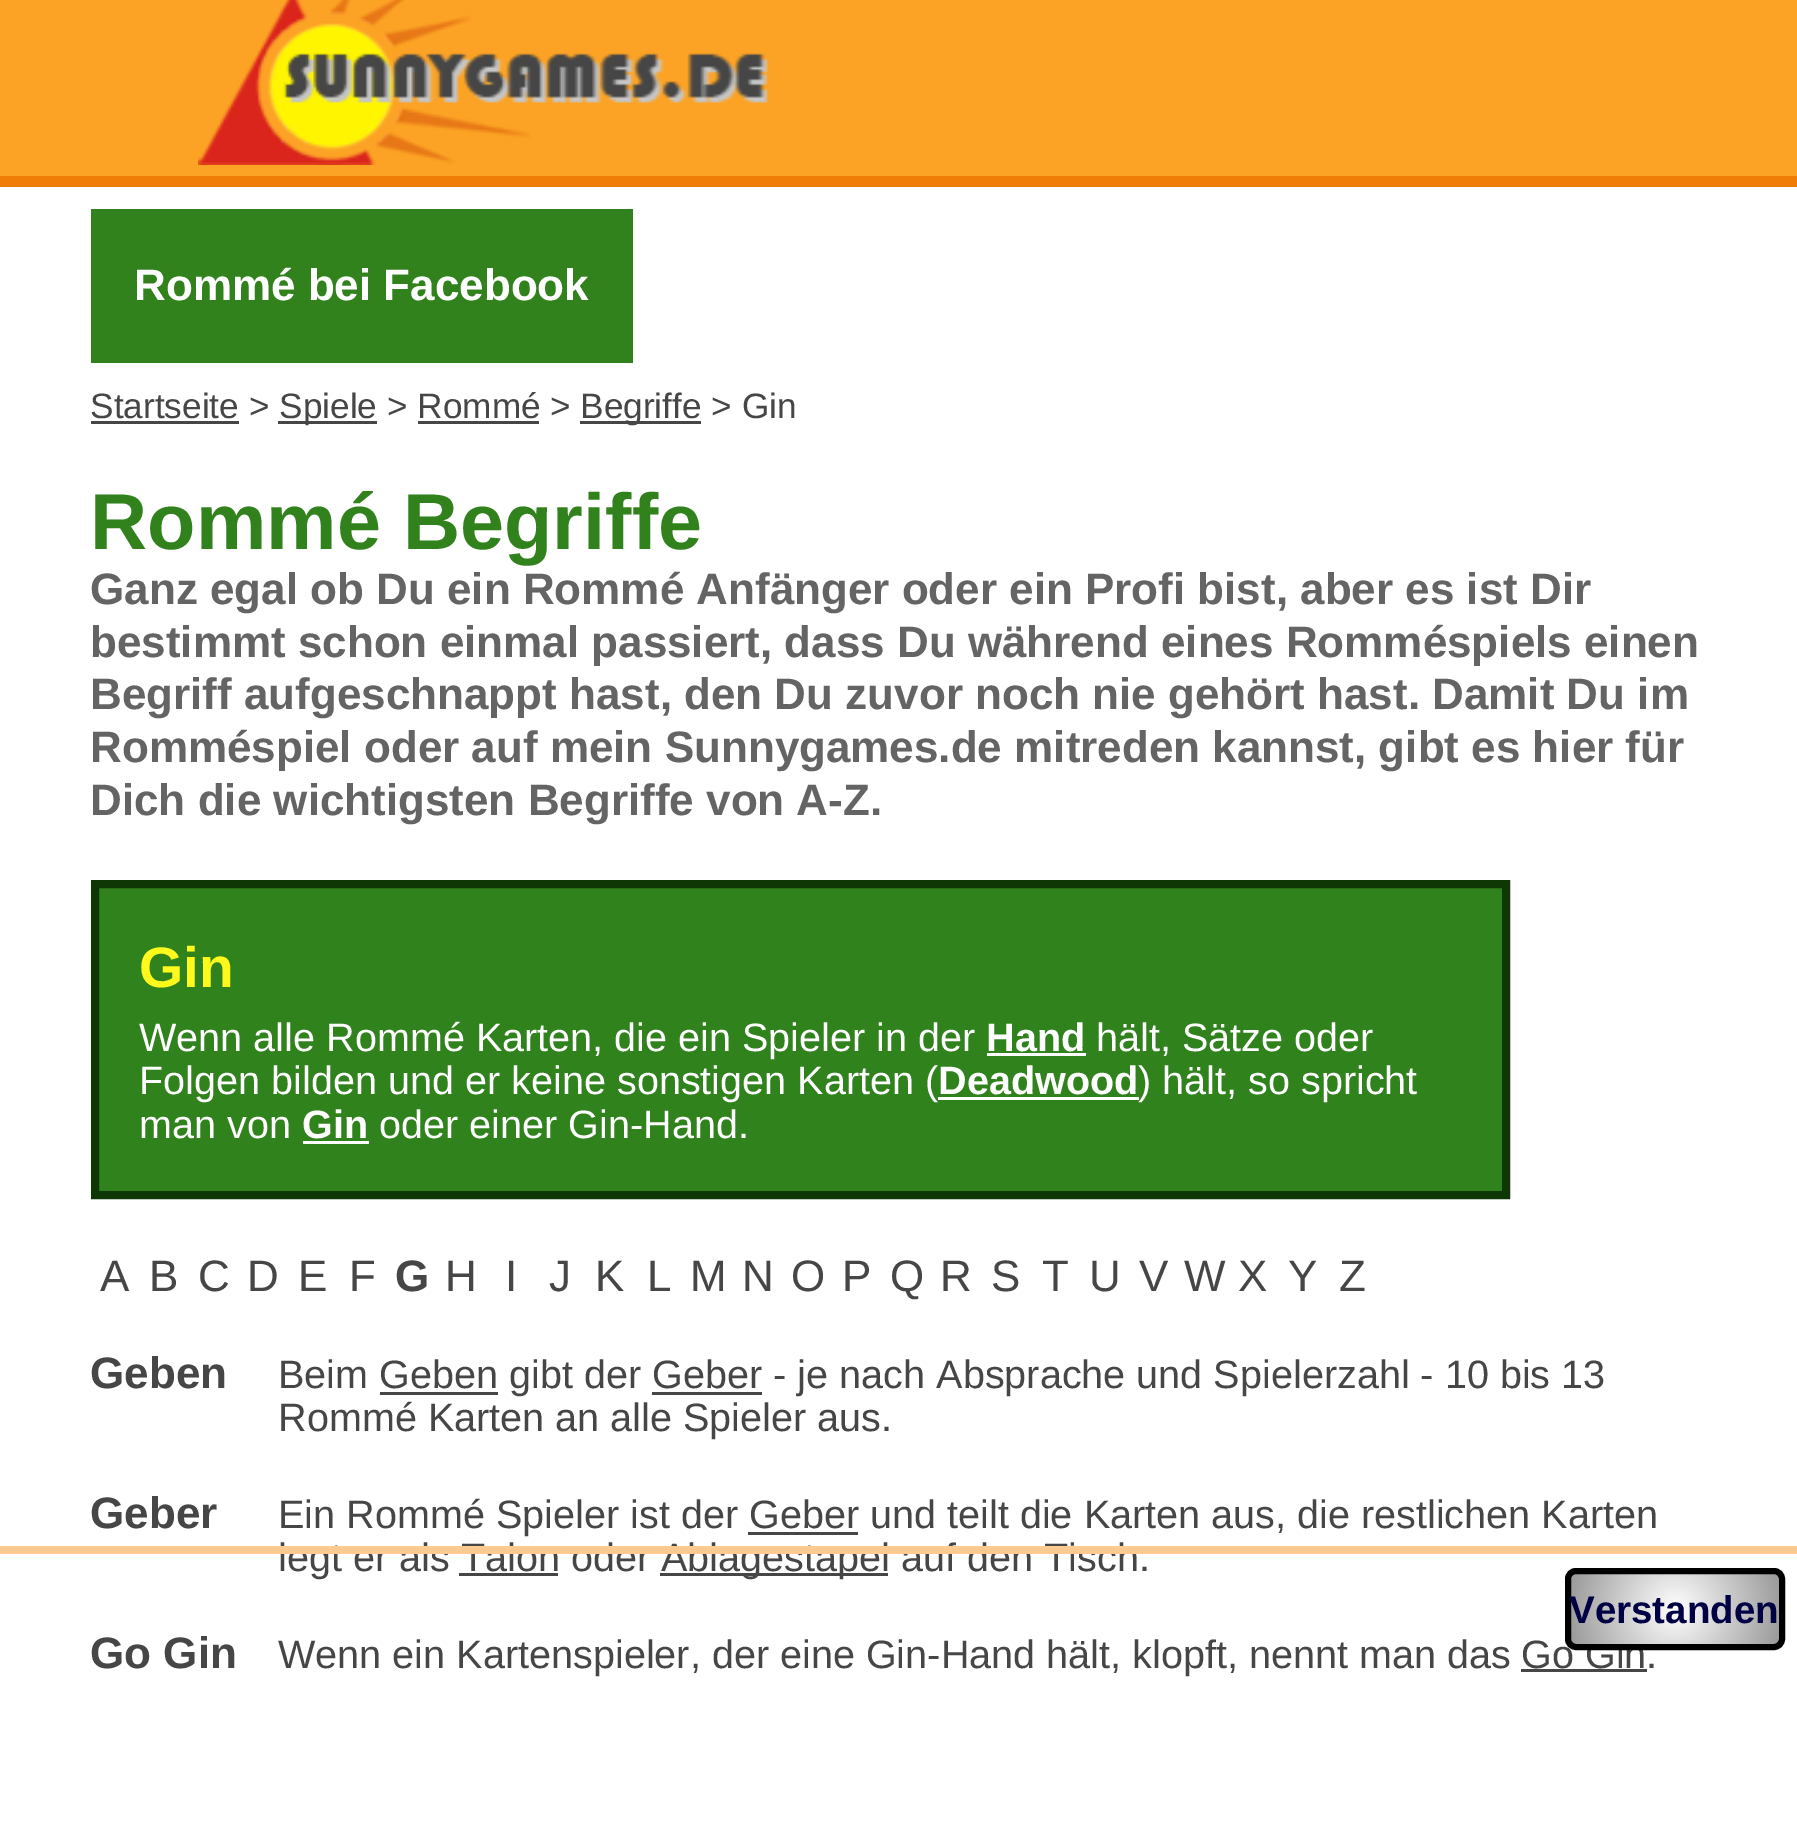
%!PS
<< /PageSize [1797 1840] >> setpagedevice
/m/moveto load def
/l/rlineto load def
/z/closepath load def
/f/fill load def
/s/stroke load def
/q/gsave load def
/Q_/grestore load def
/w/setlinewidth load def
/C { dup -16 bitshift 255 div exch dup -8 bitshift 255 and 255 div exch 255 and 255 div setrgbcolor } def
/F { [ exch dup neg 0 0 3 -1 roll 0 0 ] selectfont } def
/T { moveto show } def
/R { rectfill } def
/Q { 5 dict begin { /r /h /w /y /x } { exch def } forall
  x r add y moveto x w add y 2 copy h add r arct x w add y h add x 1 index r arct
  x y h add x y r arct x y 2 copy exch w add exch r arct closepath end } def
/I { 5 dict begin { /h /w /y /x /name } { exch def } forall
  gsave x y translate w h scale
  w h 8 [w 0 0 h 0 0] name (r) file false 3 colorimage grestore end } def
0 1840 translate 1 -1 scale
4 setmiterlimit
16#FFFFFF C
0 0 1797 1840 R
16#FCA325 C
0 0 1797 176 R
16#F07E06 C
0 176 1797 11 R
(1.rgb) 198 0 570 165 I
16#31821C C
91 209 542 154 R
/LiberationSans-Bold 44 F
16#FFFFFF C
(Rommé bei Facebook) 134 300 T
/LiberationSans-Regular 35.25 F
16#464646 C
(Startseite >) 90 418 T
91 421 148 3 R
278 421 99 3 R
(Spiele > Rommé >) 279 418 T
418 421 121 3 R
580 421 121 3 R
(Begriffe > Gin) 580 418 T
/LiberationSans-Bold 79.25 F
16#31821C C
(Rommé Begriffe) 90 549 T
/LiberationSans-Bold 44 F
16#646464 C
(Ganz egal ob Du ein Rommé Anfänger oder ein Profi bist, aber es ist Dir) 90 604 T
(bestimmt schon einmal passiert, dass Du während eines Romméspiels einen) 90 657 T
(Begriff aufgeschnappt hast, den Du zuvor noch nie gehört hast. Damit Du im) 90 709 T
(Romméspiel oder auf mein Sunnygames.de mitreden kannst, gibt es hier für) 90 762 T
(Dich die wichtigsten Begriffe von A-Z.) 90 815 T
16#30821C C
95 884 m 1411 0 l 0 311 l -1411 0 l z q f Q_
16#0F3705 C
8 w
s
/LiberationSans-Bold 57 F
16#FFF91D C
(Gin) 139 987 T
/LiberationSans-Regular 39.6 F
16#FFFFFF C
(Wenn alle Rommé Karten, die ein Spieler in der) 139 1051 T
/LiberationSans-Bold 39.6 F
(Hand) 986 1051 T
987 1053 99 3 R
/LiberationSans-Regular 39.6 F
(hält, Sätze oder) 1096 1051 T
(Folgen bilden und er keine sonstigen Karten \() 139 1094 T
/LiberationSans-Bold 39.6 F
(Deadwood) 938 1094 T
938 1097 201 3 R
/LiberationSans-Regular 39.6 F
(\) hält, so spricht) 1138 1094 T
(man von) 139 1138 T
/LiberationSans-Bold 39.6 F
(Gin) 302 1138 T
303 1141 66 3 R
/LiberationSans-Regular 39.6 F
(oder einer Gin-Hand.) 379 1138 T
/LiberationSans-Regular 44 F
16#464646 C
(A) 100 1291 T
(B) 149 1291 T
(C) 198 1291 T
(D) 247 1291 T
(E) 298 1291 T
(F) 349 1291 T
/LiberationSans-Bold 44 F
(G) 395 1291 T
/LiberationSans-Regular 44 F
(H) 445 1291 T
(I) 505 1291 T
(J) 549 1291 T
(K) 595 1291 T
(L) 647 1291 T
(M) 690 1291 T
(N) 742 1291 T
(O) 791 1291 T
(P) 842 1291 T
(Q) 890 1291 T
(R) 940 1291 T
(S) 991 1291 T
(T) 1042 1291 T
(U) 1089 1291 T
(V) 1139 1291 T
(W) 1184 1291 T
(X) 1238 1291 T
(Y) 1288 1291 T
(Z) 1339 1291 T
/LiberationSans-Bold 44 F
(Geben) 90 1388 T
/LiberationSans-Regular 39.6 F
(Beim Geben gibt der Geber - je nach Absprache und Spielerzahl - 10 bis 13) 278 1388 T
380 1392 118 3 R
652 1392 110 3 R
(Rommé Karten an alle Spieler aus.) 278 1431 T
/LiberationSans-Bold 44 F
(Geber) 90 1528 T
/LiberationSans-Regular 39.6 F
(Ein Rommé Spieler ist der Geber und teilt die Karten aus, die restlichen Karten) 278 1528 T
748 1532 110 3 R
(legt er als Talon oder) 278 1571 T
660 1573 228 3 R
(Ablagestapel auf den Tisch.) 661 1571 T
459 1573 99 3 R
/LiberationSans-Bold 44 F
(Go Gin) 90 1668 T
/LiberationSans-Regular 39.6 F
(Wenn ein Kartenspieler, der eine Gin-Hand hält, klopft, nennt man das) 278 1668 T
(Go Gin.) 1521 1668 T
1521 1669 126 3 R
16#FECA92 C
0 1546 1797 8 R
q 1571 1574 m 208 0 l 0 70 l -208 0 l z clip newpath 1675 1609 translate 110 110 scale
<< /ShadingType 3 /ColorSpace /DeviceRGB /Coords [0 0 0 0 0 1] /Extend [true true] /Function << /FunctionType 2 /Domain [0 1] /C0 [1 1 1] /C1 [.6 .6 .6] /N 1 >> >> shfill Q_
16#000000 C
6 w
1568 1571 214 76 8 Q s
/LiberationSans-Bold 38.5 F
16#000044 C
(Verstanden) 1569 1623 T
showpage
